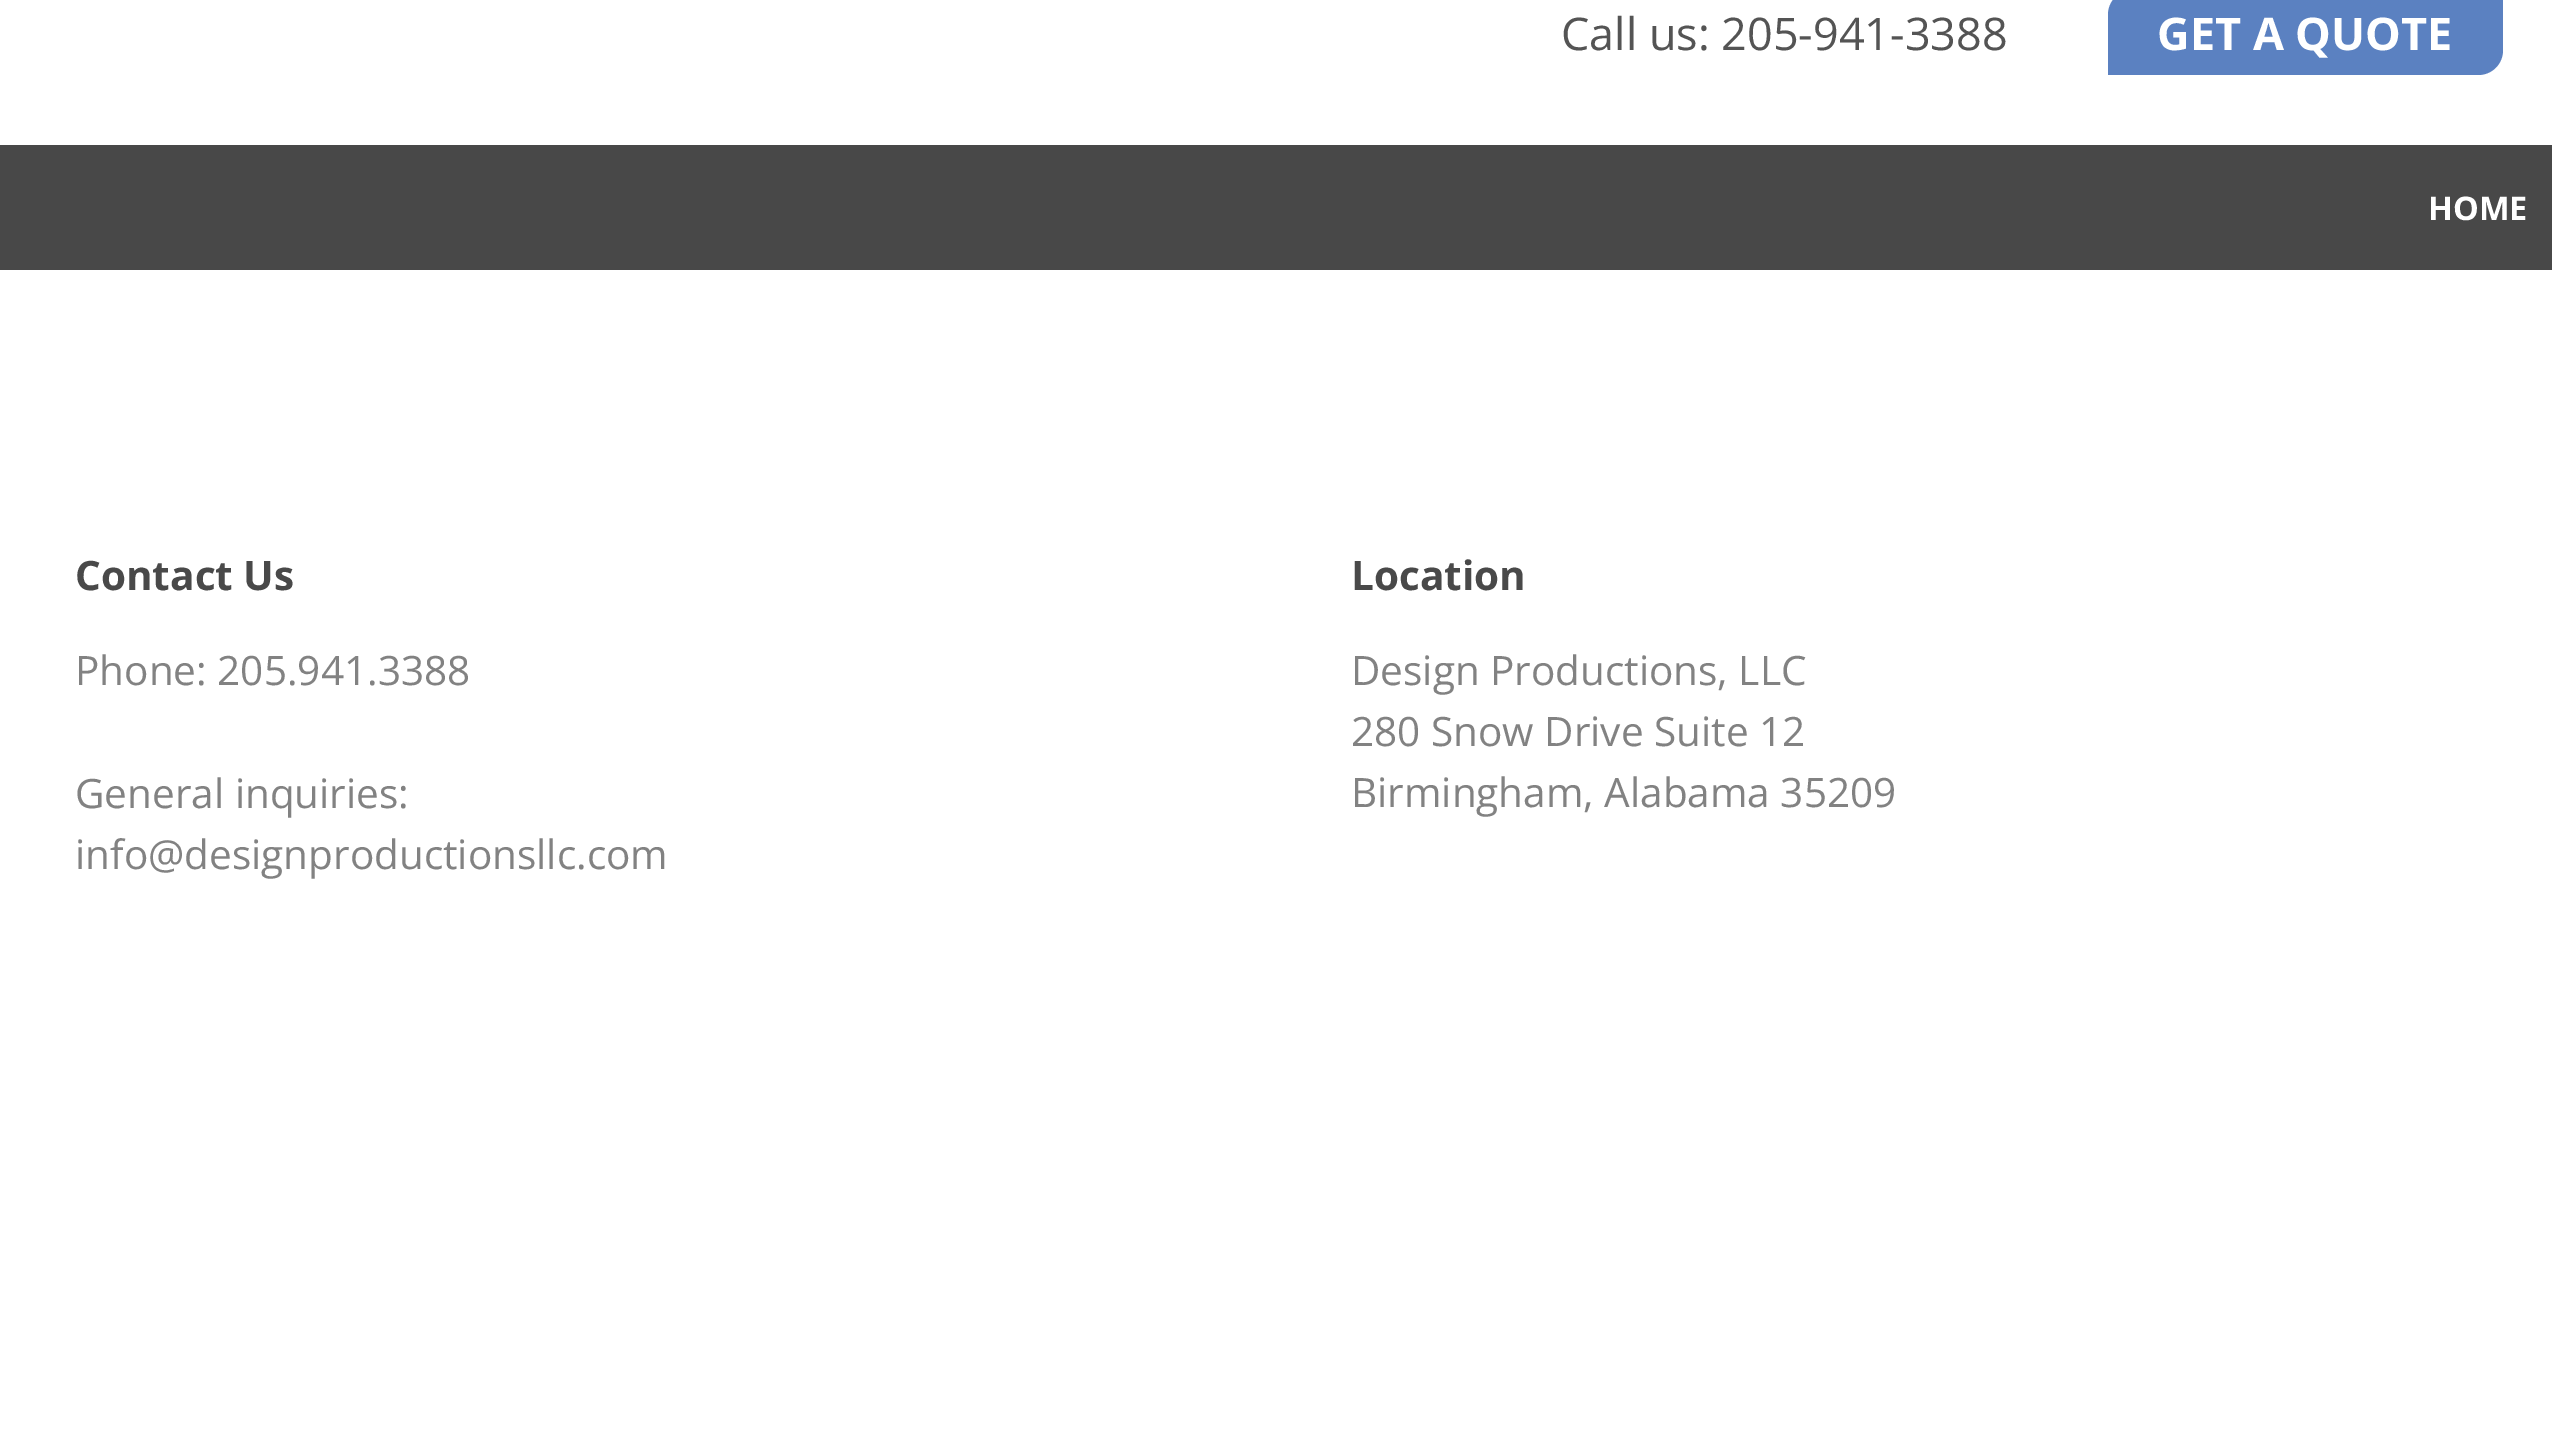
%!PS
<< /PageSize [2552 1444] >> setpagedevice
/m/moveto load def
/l/rlineto load def
/c/rcurveto load def
/z/closepath load def
/f/fill load def
/C { dup -16 bitshift 255 div exch dup -8 bitshift 255 and 255 div exch 255 and 255 div setrgbcolor } def
/F { [ exch dup neg 0 0 3 -1 roll 0 0 ] selectfont } def
/T { moveto show } def
/R { rectfill } def
0 1444 translate 1 -1 scale
4 setmiterlimit
16#FFFFFF C
0 0 2552 1444 R
/OpenSans-Regular 45 F
16#545454 C
(Call us: 205-941-3388) 1561 50 T
16#5B81C1 C
2133 -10 m 370 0 l 0 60 l 0 14 -11 25 -25 25 c -370 0 l 0 -60 l 0 -14 11 -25 25 -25 c z f
/OpenSans-Bold 45 F
16#FFFFFF C
(GET A QUOTE) 2157 50 T
16#484848 C
0 145 2552 125 R
/OpenSans-Bold 32.5 F
16#FFFFFF C
(HOME) 2428 220 T
/OpenSans-Bold 40.5 F
16#494949 C
(Contact Us) 75 590 T
/OpenSans-Regular 40.5 F
16#828282 C
(Phone: 205.941.3388) 75 685 T
(General inquiries:) 75 808 T
(info@designproductionsllc.com) 75 869 T
/OpenSans-Bold 40.5 F
16#494949 C
(Location) 1351 590 T
/OpenSans-Regular 40.5 F
16#828282 C
(Design Productions, LLC) 1351 685 T
(280 Snow Drive Suite 12) 1351 746 T
(Birmingham, Alabama 35209) 1351 807 T
showpage
